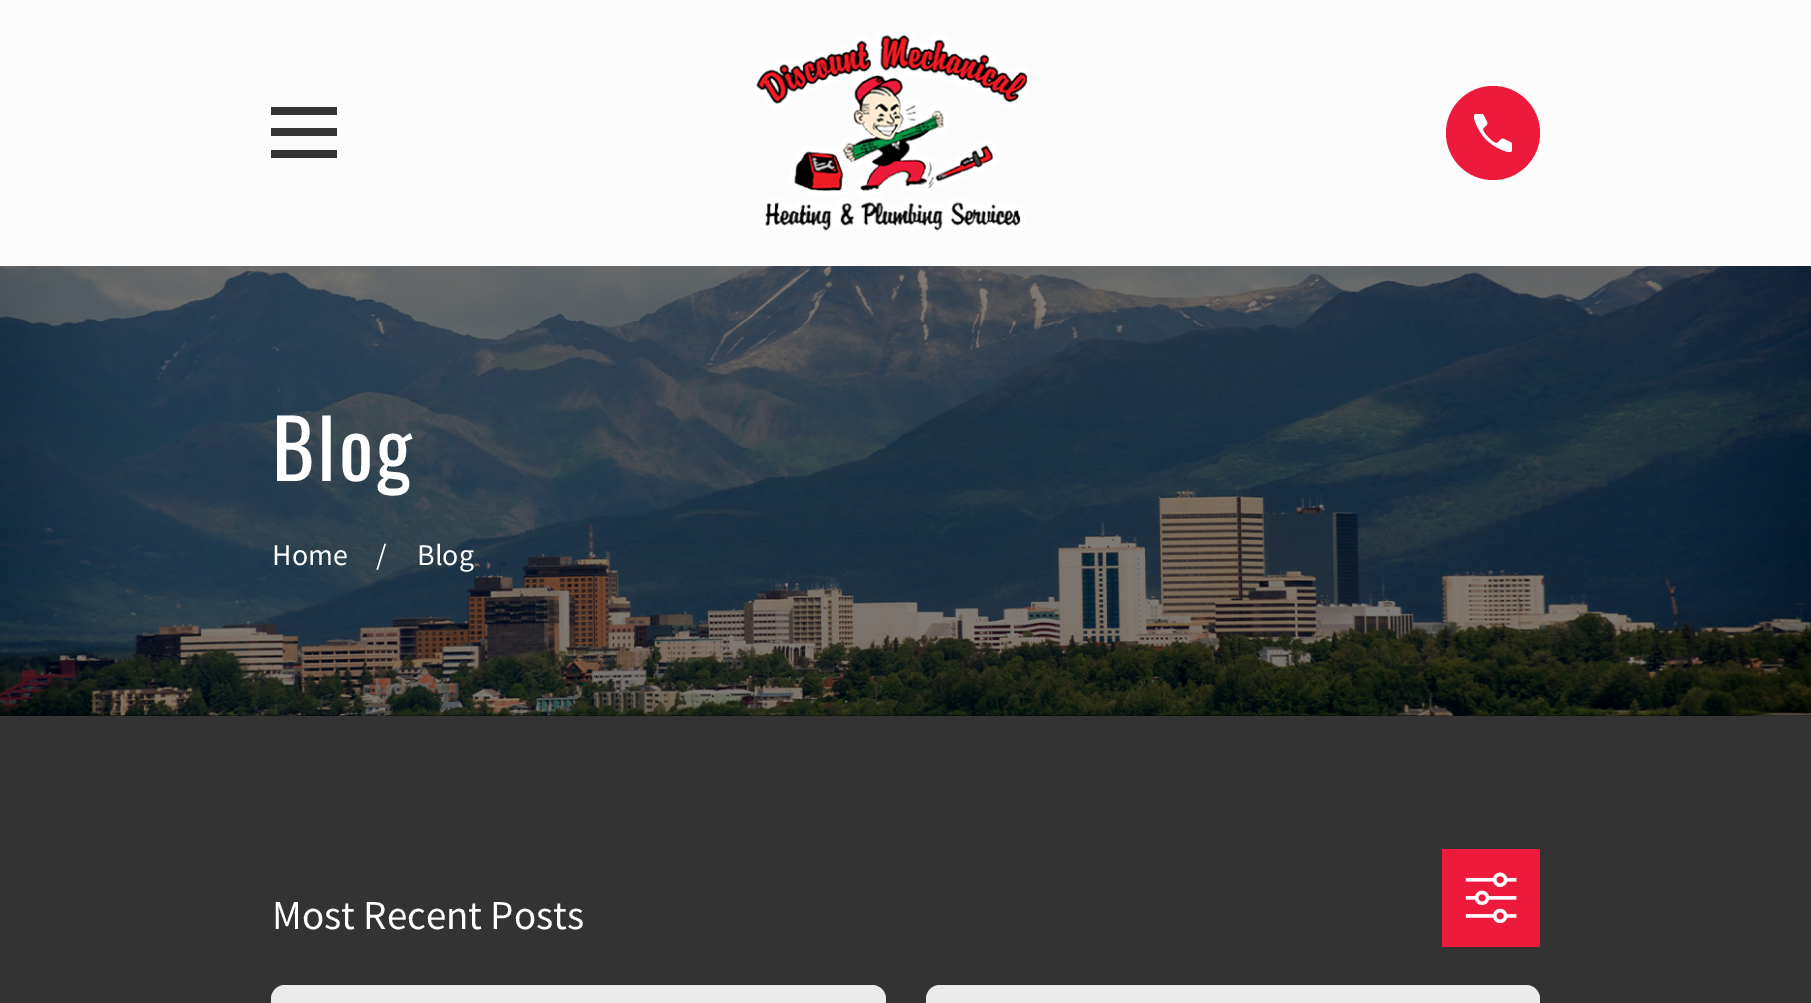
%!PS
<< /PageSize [1811 1003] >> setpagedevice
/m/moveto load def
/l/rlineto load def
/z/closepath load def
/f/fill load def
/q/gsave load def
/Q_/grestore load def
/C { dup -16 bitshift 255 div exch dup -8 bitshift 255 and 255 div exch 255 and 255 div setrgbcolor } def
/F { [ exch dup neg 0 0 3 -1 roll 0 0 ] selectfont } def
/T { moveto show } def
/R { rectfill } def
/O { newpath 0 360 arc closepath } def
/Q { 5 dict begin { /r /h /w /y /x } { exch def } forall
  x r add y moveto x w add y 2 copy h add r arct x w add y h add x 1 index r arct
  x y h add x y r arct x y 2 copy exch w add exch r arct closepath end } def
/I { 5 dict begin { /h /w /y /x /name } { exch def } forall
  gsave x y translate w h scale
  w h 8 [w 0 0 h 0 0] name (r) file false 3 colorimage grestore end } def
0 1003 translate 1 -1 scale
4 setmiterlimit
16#333333 C
0 0 1811 1003 R
16#FCFCFC C
0 0 1811 266 R
16#343434 C
271 107 m 0 8 l 66 0 l 0 -8 l z 271 128 m 0 8 l 66 0 l 0 -8 l z 271 150 m 0 8 l 66 0 l 0 -8 l z f
(1.rgb) 756 34 272 197 I
16#ED1A3B C
1493 133 47 O f
(2.rgb) 1474 114 38 38 I
q 0 715 m 1811 0 l 0 1 l -1811 0 l z clip newpath
<< /ShadingType 2 /ColorSpace /DeviceRGB /Coords [906 266 906 716] /Extend [true true] /Function << /FunctionType 2 /Domain [0 1] /C0 [.2 .2 .2] /C1 [.031 .031 .031] /N 1 >> >> shfill Q_
(3.rgb) 0 266 1811 450 I
/Oswald-Regular 81 F
16#FFFFFF C
272 481 m 3 0 (Blog) ashow
/SourceSansPro-Regular 30 F
(Home) 272 565 T
(/) 376 565 T
(Blog) 417 565 T
/SourceSansPro-Regular 41 F
(Most Recent Posts) 272 929 T
16#ED1A3B C
1442 849 98 98 R
(4.rgb) 1465 872 52 52 I
16#EBEBEB C
271 985 615 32 14 Q f
926 985 614 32 14 Q f
showpage
